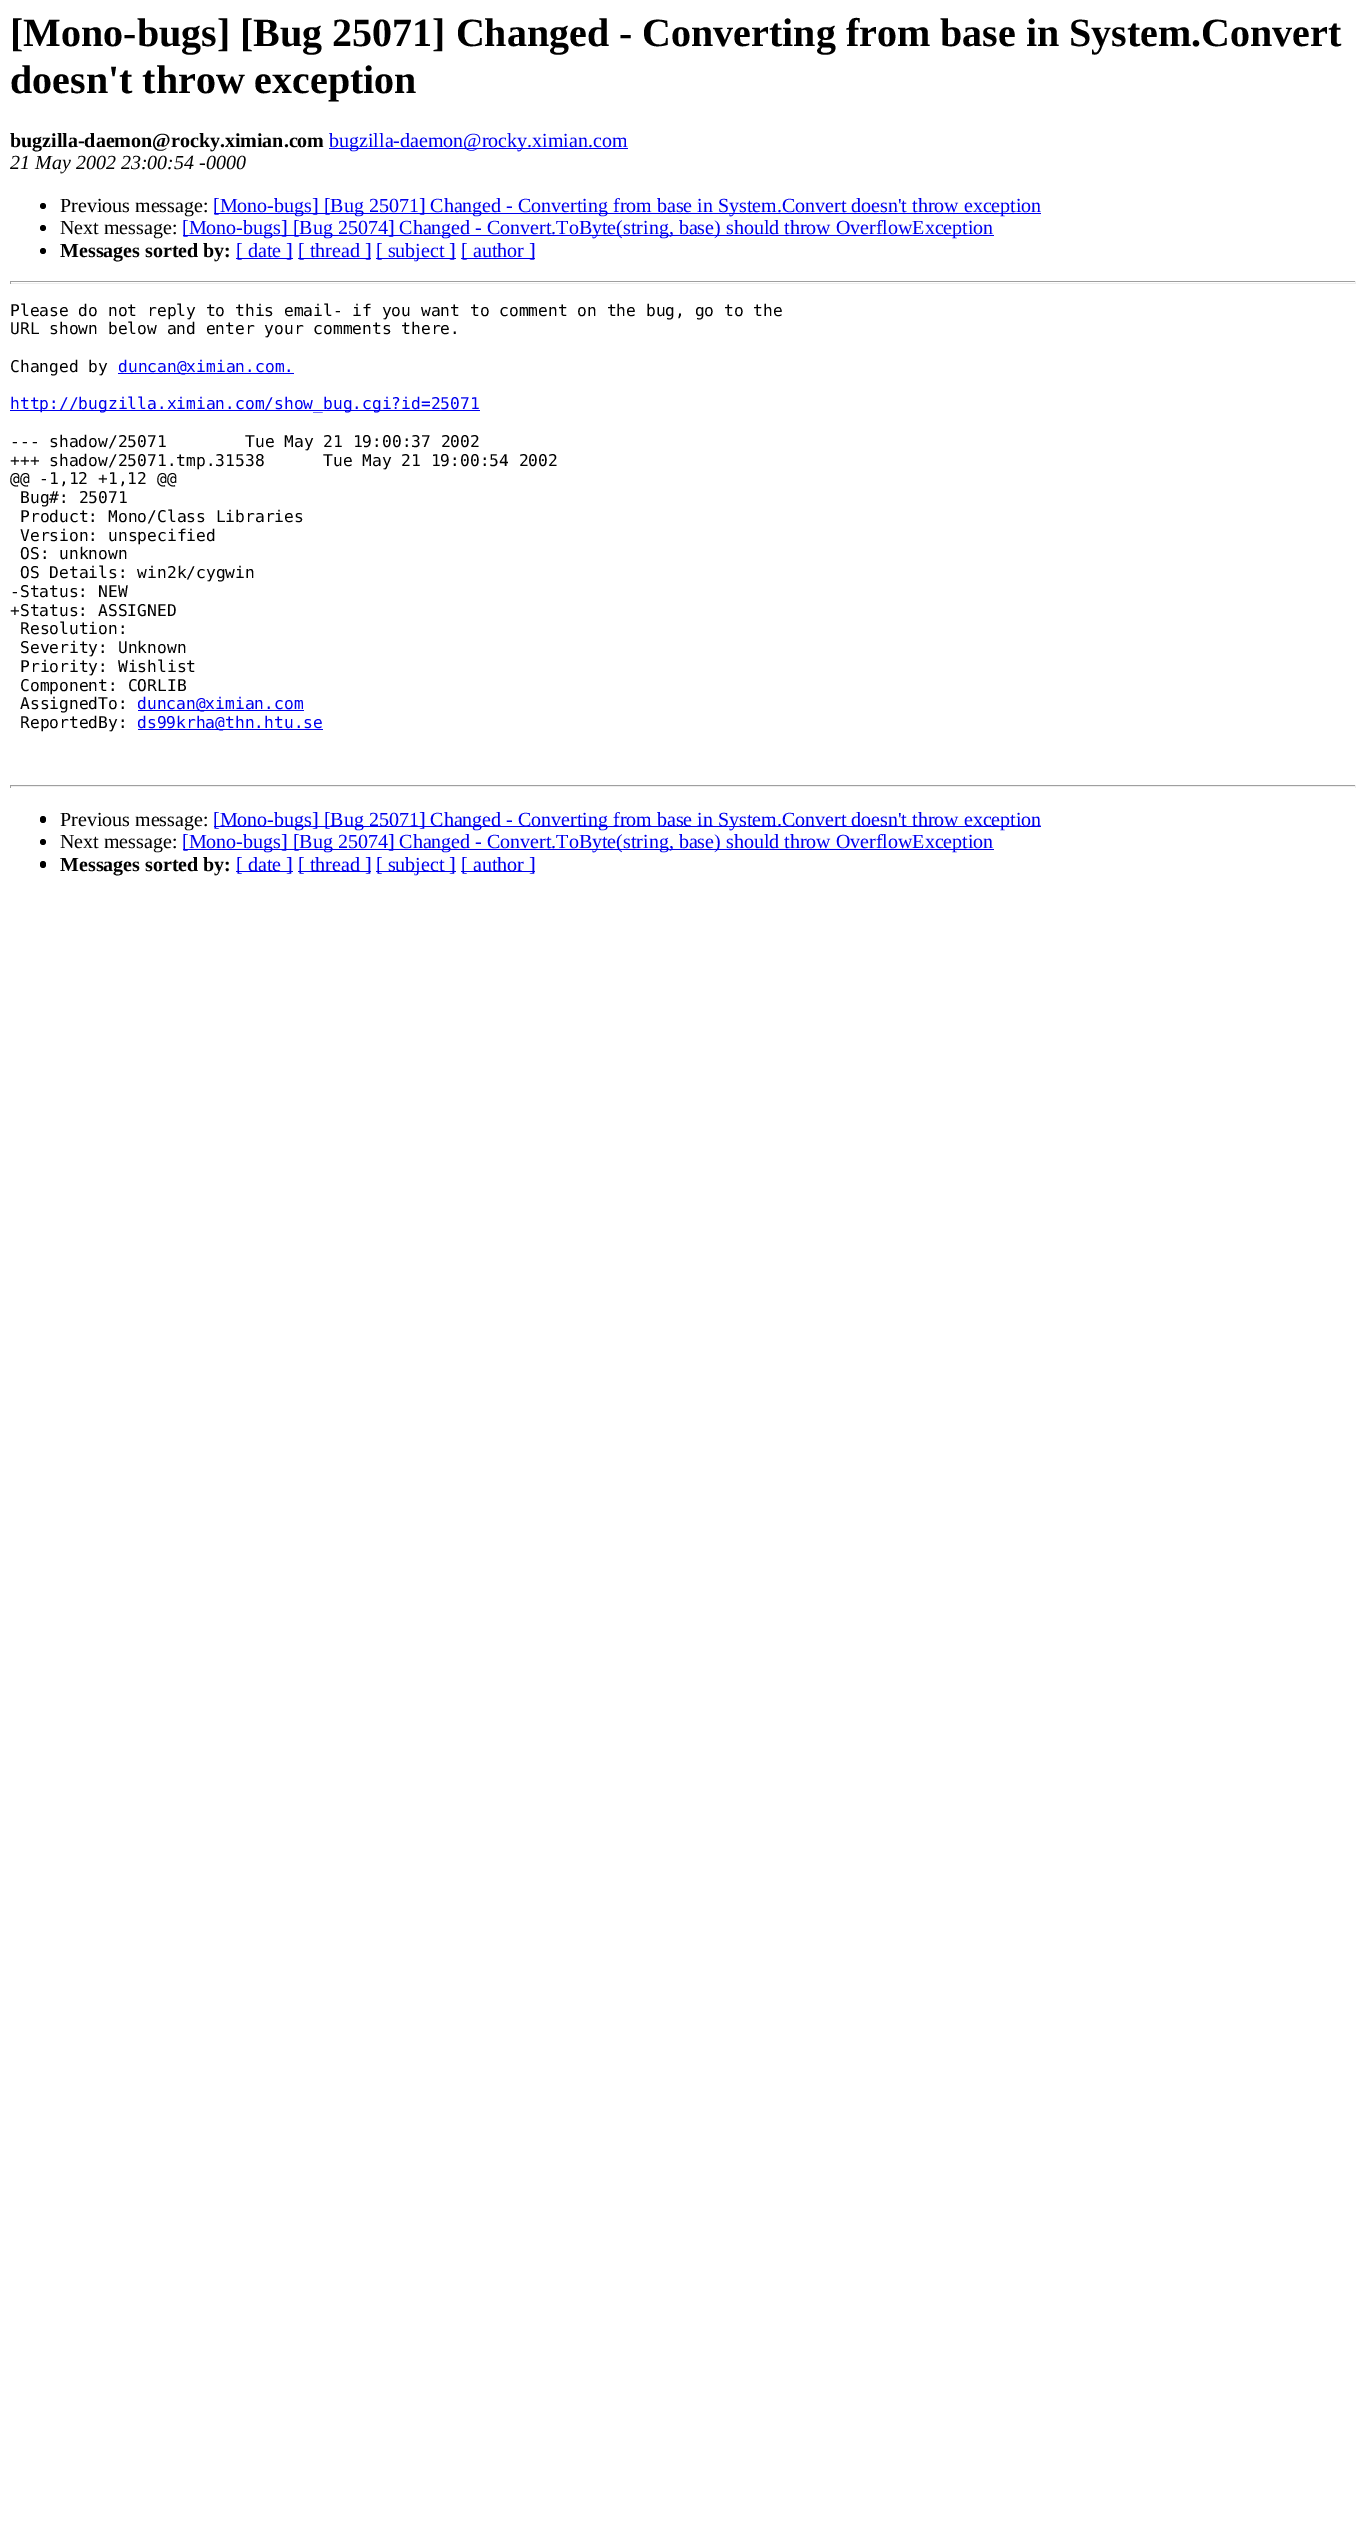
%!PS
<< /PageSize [1366 2521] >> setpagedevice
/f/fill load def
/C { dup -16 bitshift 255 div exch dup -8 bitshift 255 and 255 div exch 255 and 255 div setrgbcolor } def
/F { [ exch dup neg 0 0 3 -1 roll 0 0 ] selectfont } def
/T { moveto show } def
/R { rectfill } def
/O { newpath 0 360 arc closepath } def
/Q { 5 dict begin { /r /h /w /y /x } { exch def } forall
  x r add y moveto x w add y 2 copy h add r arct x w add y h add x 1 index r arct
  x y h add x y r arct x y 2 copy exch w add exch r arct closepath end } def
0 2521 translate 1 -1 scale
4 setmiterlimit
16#FFFFFF C
0 0 1366 2521 R
/LiberationSerif-Bold 40 F
16#000000 C
([Mono-bugs] [Bug 25071] Changed - Converting from base in System.Convert) 10 46 T
(doesn't throw exception) 10 93 T
/LiberationSerif-Bold 20 F
(bugzilla-daemon@rocky.ximian.com) 10 147 T
16#0000EE C
329 148 299 1 R
/LiberationSerif-Regular 20 F
(bugzilla-daemon@rocky.ximian.com) 329 147 T
/LiberationSerif-Italic 20 F
16#000000 C
(21 May 2002 23:00:54 -0000) 10 169 T
43 206 3 O f
/LiberationSerif-Regular 20 F
(Previous message:) 60 212 T
16#0000EE C
214 213 827 1 R
([Mono-bugs] [Bug 25071] Changed - Converting from base in System.Convert doesn't throw exception) 213 212 T
16#000000 C
43 228 3 O f
(Next message:) 60 234 T
16#0000EE C
183 235 811 1 R
([Mono-bugs] [Bug 25074] Changed - Convert.ToByte\(string, base\) should throw OverflowException) 182 234 T
16#000000 C
43 251 3 O f
/LiberationSerif-Bold 20 F
(Messages sorted by:) 60 257 T
16#0000EE C
236 258 57 1 R
/LiberationSerif-Regular 20 F
([ date ]) 236 257 T
298 258 73 1 R
([ thread ]) 298 257 T
376 258 80 1 R
([ subject ]) 376 257 T
461 258 74 1 R
([ author ]) 461 257 T
16#9F9F9F C
10 281 1346 1 R
16#EEEEEE C
1355 281 1 3 R
10 283 1346 1 R
16#9F9F9F C
10 281 1 3 R
/DejaVuSansMono-Regular 16.25 F
16#000000 C
(Please do not reply to this email- if you want to comment on the bug, go to the) 10 316 T
(URL shown below and enter your comments there.) 10 334 T
(Changed by) 10 372 T
16#0000EE C
118 373 176 1 R
(duncan@ximian.com.) 118 372 T
10 410 470 1 R
(http://bugzilla.ximian.com/show_bug.cgi?id=25071) 10 409 T
16#000000 C
(--- shadow/25071) 10 447 T
(Tue May 21 19:00:37 2002) 245 447 T
(+++ shadow/25071.tmp.31538) 10 466 T
(Tue May 21 19:00:54 2002) 323 466 T
(@@ -1,12 +1,12 @@) 10 484 T
(Bug#: 25071) 20 503 T
(Product: Mono/Class Libraries) 20 522 T
(Version: unspecified) 20 541 T
(OS: unknown) 20 559 T
(OS Details: win2k/cygwin) 20 578 T
(-Status: NEW) 10 597 T
(+Status: ASSIGNED) 10 616 T
(Resolution:) 20 634 T
(Severity: Unknown) 20 653 T
(Priority: Wishlist) 20 672 T
(Component: CORLIB) 20 691 T
(AssignedTo:) 20 709 T
16#0000EE C
138 710 166 1 R
(duncan@ximian.com) 137 709 T
16#000000 C
(ReportedBy:) 20 728 T
16#0000EE C
138 729 185 1 R
(ds99krha@thn.htu.se) 137 728 T
16#9F9F9F C
10 785 1346 1 R
16#EEEEEE C
1355 785 1 3 R
10 786 1346 1 R
16#9F9F9F C
10 785 1 3 R
16#000000 C
40 816 6 7 3 Q f
/LiberationSerif-Regular 20 F
(Previous message:) 60 826 T
16#0000EE C
214 826 827 1 R
([Mono-bugs] [Bug 25071] Changed - Converting from base in System.Convert doesn't throw exception) 213 826 T
16#000000 C
43 842 3 O f
(Next message:) 60 848 T
16#0000EE C
183 849 811 1 R
([Mono-bugs] [Bug 25074] Changed - Convert.ToByte\(string, base\) should throw OverflowException) 182 848 T
16#000000 C
40 861 6 7 3 Q f
/LiberationSerif-Bold 20 F
(Messages sorted by:) 60 871 T
16#0000EE C
236 871 57 1 R
/LiberationSerif-Regular 20 F
([ date ]) 236 871 T
298 871 73 1 R
([ thread ]) 298 871 T
376 871 80 1 R
([ subject ]) 376 871 T
461 871 74 1 R
([ author ]) 461 871 T
showpage
